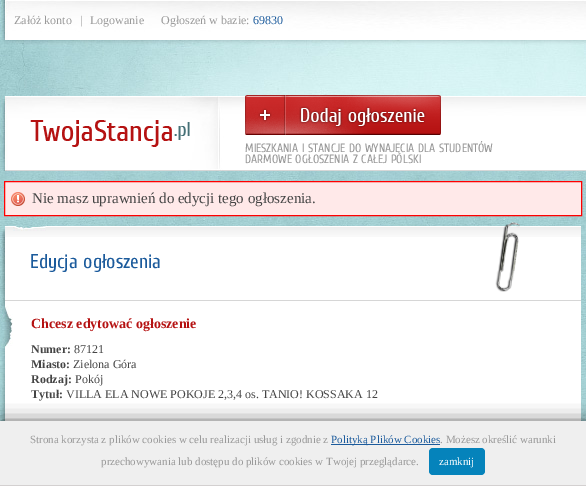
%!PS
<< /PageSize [586 486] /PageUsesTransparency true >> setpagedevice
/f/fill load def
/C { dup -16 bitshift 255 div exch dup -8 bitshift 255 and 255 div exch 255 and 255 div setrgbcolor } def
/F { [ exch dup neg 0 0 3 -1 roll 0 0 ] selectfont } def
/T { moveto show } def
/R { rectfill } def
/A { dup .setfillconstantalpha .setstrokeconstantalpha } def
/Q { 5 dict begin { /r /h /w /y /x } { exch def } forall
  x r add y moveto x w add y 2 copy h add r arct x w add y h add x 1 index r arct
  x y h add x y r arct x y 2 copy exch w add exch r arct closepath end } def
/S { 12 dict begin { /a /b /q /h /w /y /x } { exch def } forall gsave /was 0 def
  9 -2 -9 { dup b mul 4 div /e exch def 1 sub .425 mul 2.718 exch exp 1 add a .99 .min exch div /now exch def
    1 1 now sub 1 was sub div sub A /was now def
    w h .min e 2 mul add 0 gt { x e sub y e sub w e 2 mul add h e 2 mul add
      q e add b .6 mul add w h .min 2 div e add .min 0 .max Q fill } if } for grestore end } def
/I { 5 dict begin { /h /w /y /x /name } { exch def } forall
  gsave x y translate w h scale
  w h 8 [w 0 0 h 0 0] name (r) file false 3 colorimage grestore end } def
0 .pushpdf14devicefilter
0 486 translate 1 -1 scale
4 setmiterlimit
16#FFFFFF C
0 0 586 486 R
(1.rgb) 0 171 586 250 I
(2.rgb) 0 0 586 171 I
/LiberationSerif-Regular 12 F
16#999999 C
(Załóż konto) 14 24 T
(|) 80 24 T
(Logowanie) 90 24 T
(Ogłoszeń w bazie:) 161 24 T
16#1C5B9C C
(69830) 253 24 T
(3.rgb) 30 120 160 27 I
(4.rgb) 245 95 196 40 I
/Cuprum-Regular 12 F
16#999999 C
(MIESZKANIA I STANCJE DO WYNAJĘCIA DLA STUDENTÓW) 245 152 T
(DARMOWE OGŁOSZENIA Z CAŁEJ POLSKI) 245 163 T
16#FFE9E9 C
5 182 576 33 R
(5.rgb) 11 192 14 14 I
16#FF0000 C
4.5 181.5 577 34 rectstroke
/LiberationSerif-Regular 15 F
16#454545 C
(Nie masz uprawnień do edycji tego ogłoszenia.) 32 203 T
(6.rgb) 1 229 4 192 I
16#FFFFFF C
5 226 576 195 R
(9.rgb) 5 227 576 10 I
(7.rgb) 13 226 33 5 I
(8.rgb) 495 222 25 70 I
16#D6D6D6 C
5 300 576 1 R
/Cuprum-Regular 20 F
16#1C5B9C C
(Edycja ogłoszenia) 30 268 T
(10.rgb) 1 306 12 42 I
/LiberationSerif-Bold 14 F
16#B51212 C
(Chcesz edytować ogłoszenie) 31 328 T
/LiberationSerif-Bold 12 F
16#454545 C
(Numer:) 31 353 T
/LiberationSerif-Regular 12 F
(87121) 74 353 T
/LiberationSerif-Bold 12 F
(Miasto:) 31 368 T
/LiberationSerif-Regular 12 F
(Zielona Góra) 73 368 T
/LiberationSerif-Bold 12 F
(Rodzaj:) 31 383 T
/LiberationSerif-Regular 12 F
(Pokój) 75 383 T
/LiberationSerif-Bold 12 F
(Tytuł:) 31 398 T
/LiberationSerif-Regular 12 F
(VILLA ELA NOWE POKOJE 2,3,4 os. TANIO! KOSSAKA 12) 66 398 T
16#000000 C
2 426 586 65 0 10 1 S
16#EFEFEF C
0 421 586 64 R
16#D3D0D0 C
0 485 586 1 R
/LiberationSerif-Regular 11 F
16#999999 C
(Strona korzysta z plików cookies w celu realizacji usług i zgodnie z) 30 443 T
16#1C5B9C C
331 444 109 1 R
(Polityką Plików Cookies) 331 443 T
16#999999 C
(. Możesz określić warunki) 440 443 T
(przechowywania lub dostępu do plików cookies w Twojej przeglądarce.) 101 465 T
16#0583BB C
429 448 56 27 4 Q f
16#FFFFFF C
(zamknij) 439 465 T
.poppdf14devicefilter showpage
